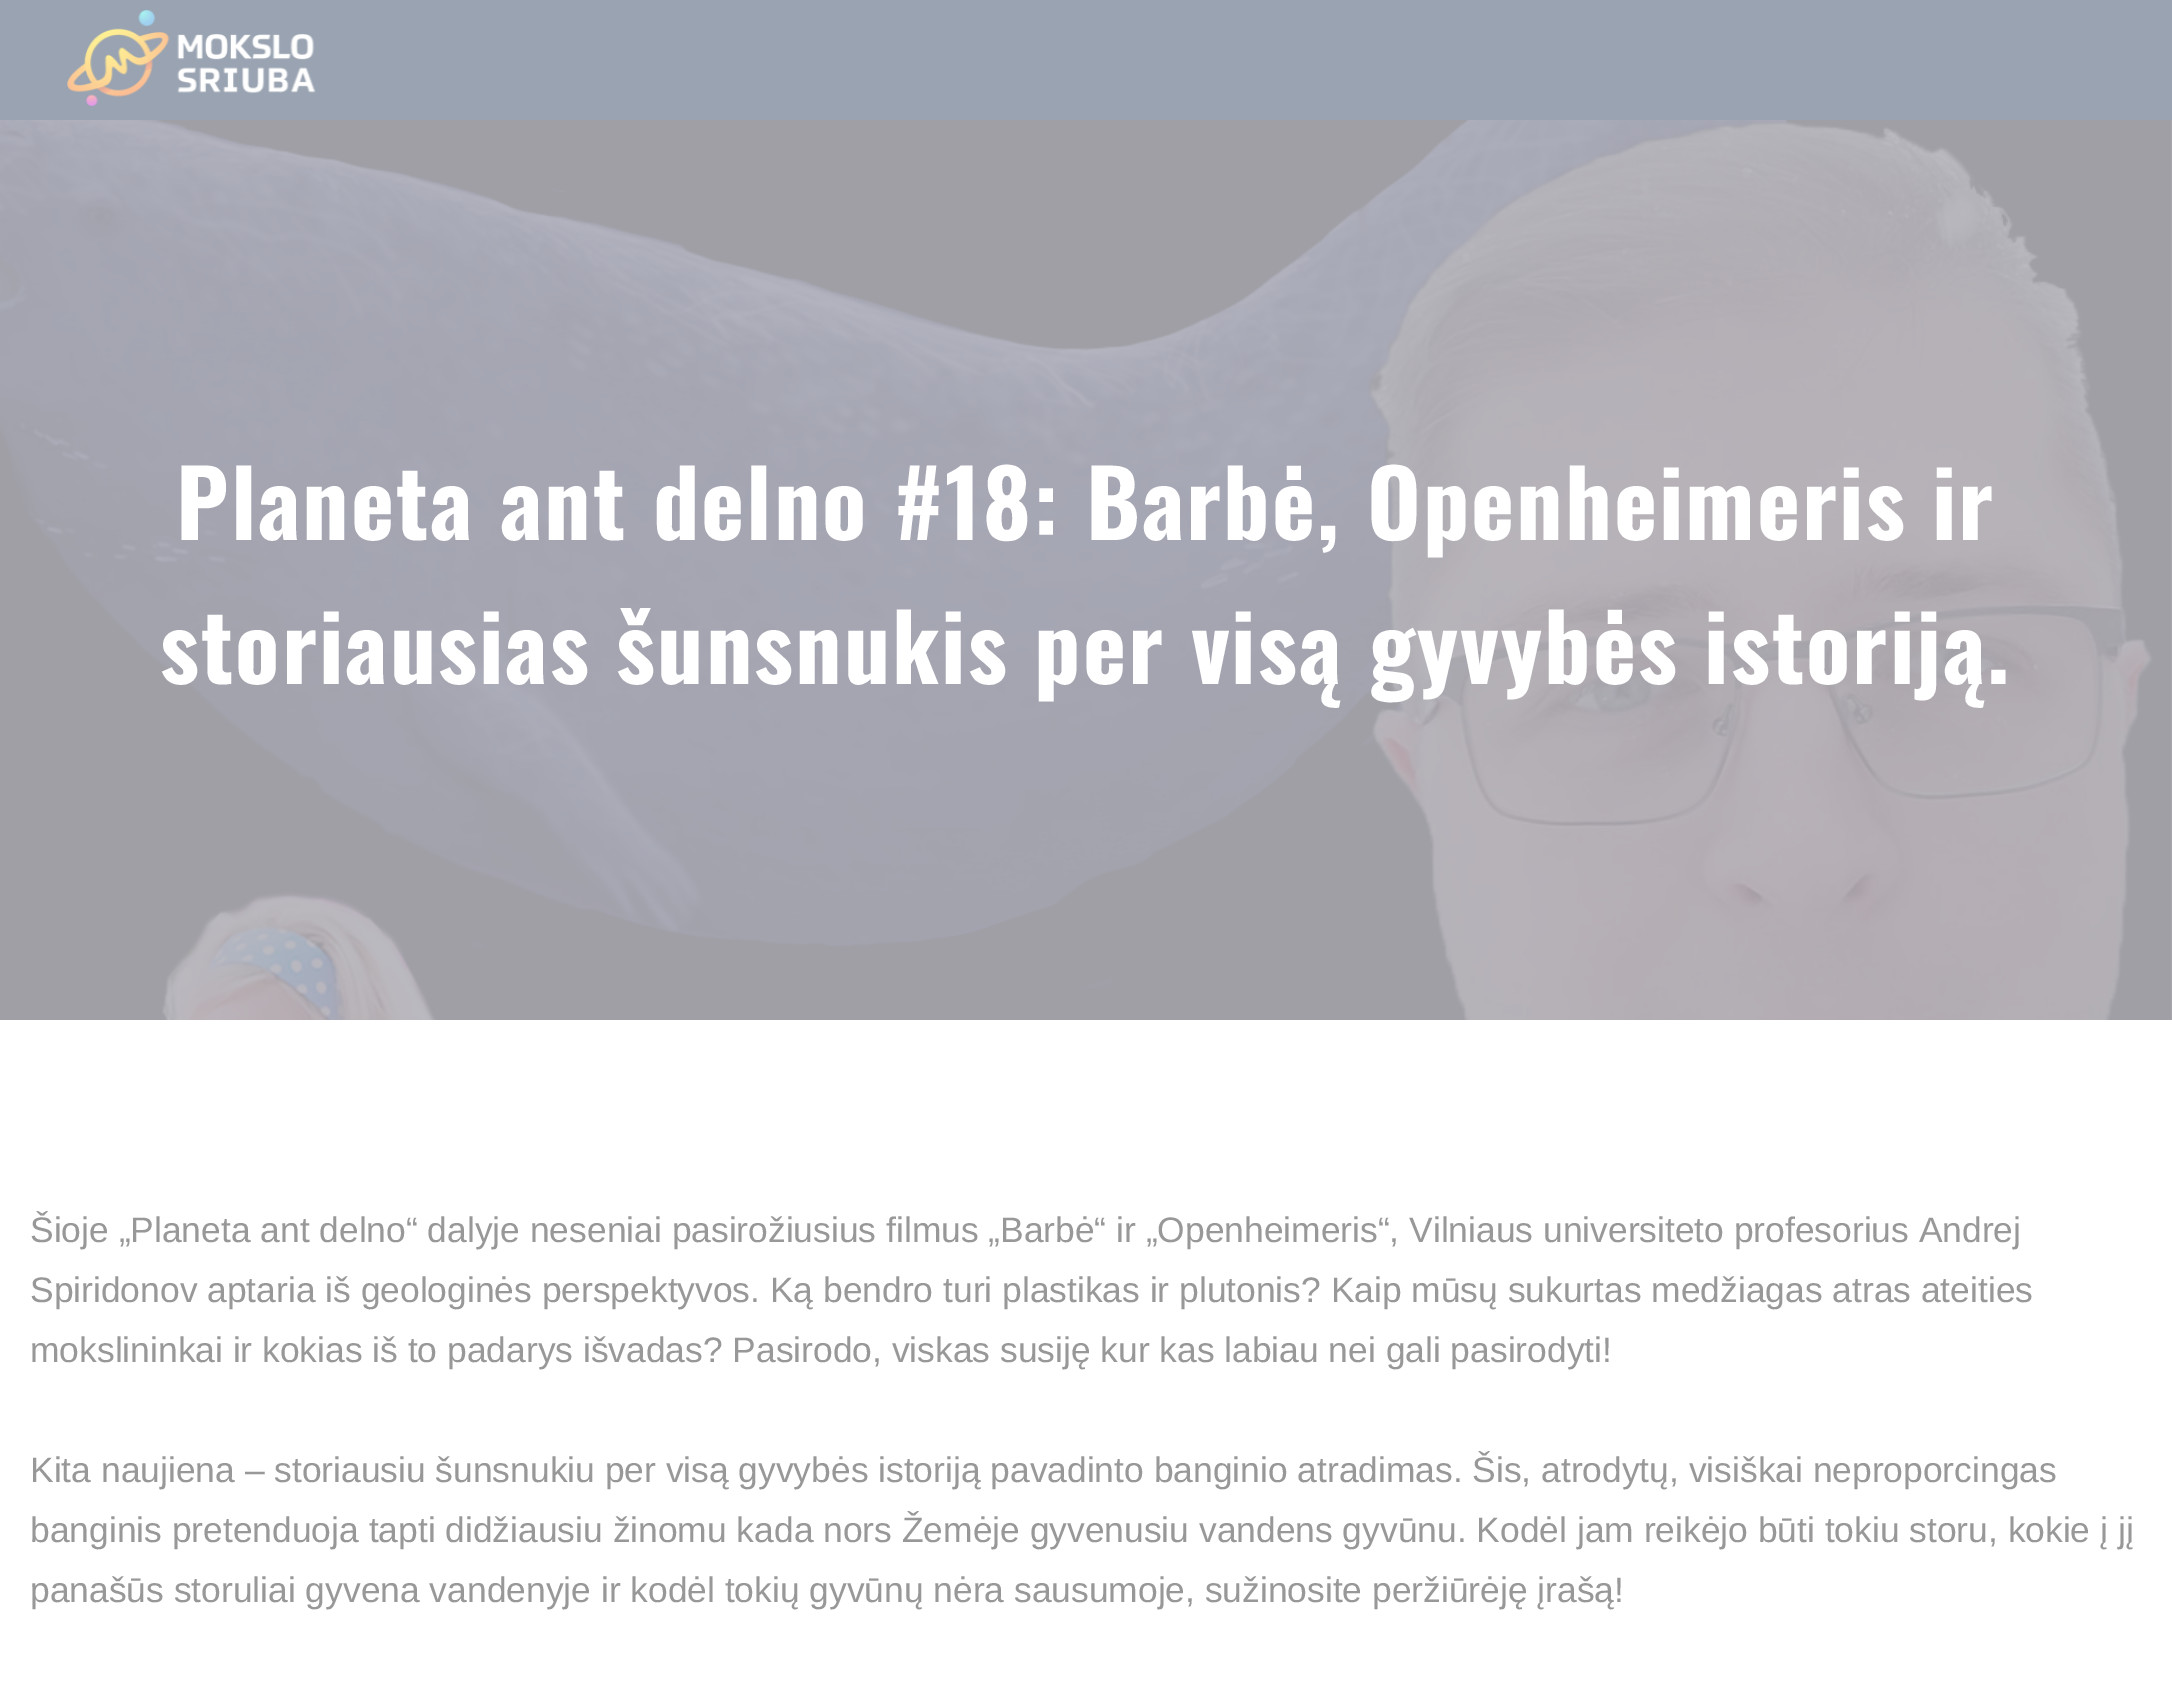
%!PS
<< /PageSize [2172 1702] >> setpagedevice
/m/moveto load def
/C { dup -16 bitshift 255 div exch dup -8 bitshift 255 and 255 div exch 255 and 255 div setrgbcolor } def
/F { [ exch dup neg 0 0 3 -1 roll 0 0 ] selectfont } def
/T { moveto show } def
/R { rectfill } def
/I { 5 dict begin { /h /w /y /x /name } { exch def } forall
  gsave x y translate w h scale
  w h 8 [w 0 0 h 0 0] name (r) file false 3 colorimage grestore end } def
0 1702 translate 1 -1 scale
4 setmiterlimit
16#FFFFFF C
0 0 2172 1702 R
16#99A3B2 C
0 0 2172 120 R
(1.rgb) 67 10 249 97 I
(2.rgb) 0 120 2172 900 I
/Oswald-Bold 92 F
16#FFFFFF C
176 540 m 2 0 (Planeta ant delno #18: Barbė, Openheimeris ir) ashow
160 684 m 2 0 (storiausias šunsnukis per visą gyvybės istoriją.) ashow
/LiberationSans-Regular 35.4 F
16#989898 C
(Šioje „Planeta ant delno“ dalyje neseniai pasirožiusius filmus „Barbė“ ir „Openheimeris“, Vilniaus universiteto profesorius Andrej) 30 1242 T
(Spiridonov aptaria iš geologinės perspektyvos. Ką bendro turi plastikas ir plutonis? Kaip mūsų sukurtas medžiagas atras ateities) 30 1302 T
(mokslininkai ir kokias iš to padarys išvadas? Pasirodo, viskas susiję kur kas labiau nei gali pasirodyti!) 30 1362 T
(Kita naujiena – storiausiu šunsnukiu per visą gyvybės istoriją pavadinto banginio atradimas. Šis, atrodytų, visiškai neproporcingas) 30 1482 T
(banginis pretenduoja tapti didžiausiu žinomu kada nors Žemėje gyvenusiu vandens gyvūnu. Kodėl jam reikėjo būti tokiu storu, kokie į jį) 30 1542 T
(panašūs storuliai gyvena vandenyje ir kodėl tokių gyvūnų nėra sausumoje, sužinosite peržiūrėję įrašą!) 30 1602 T
showpage
